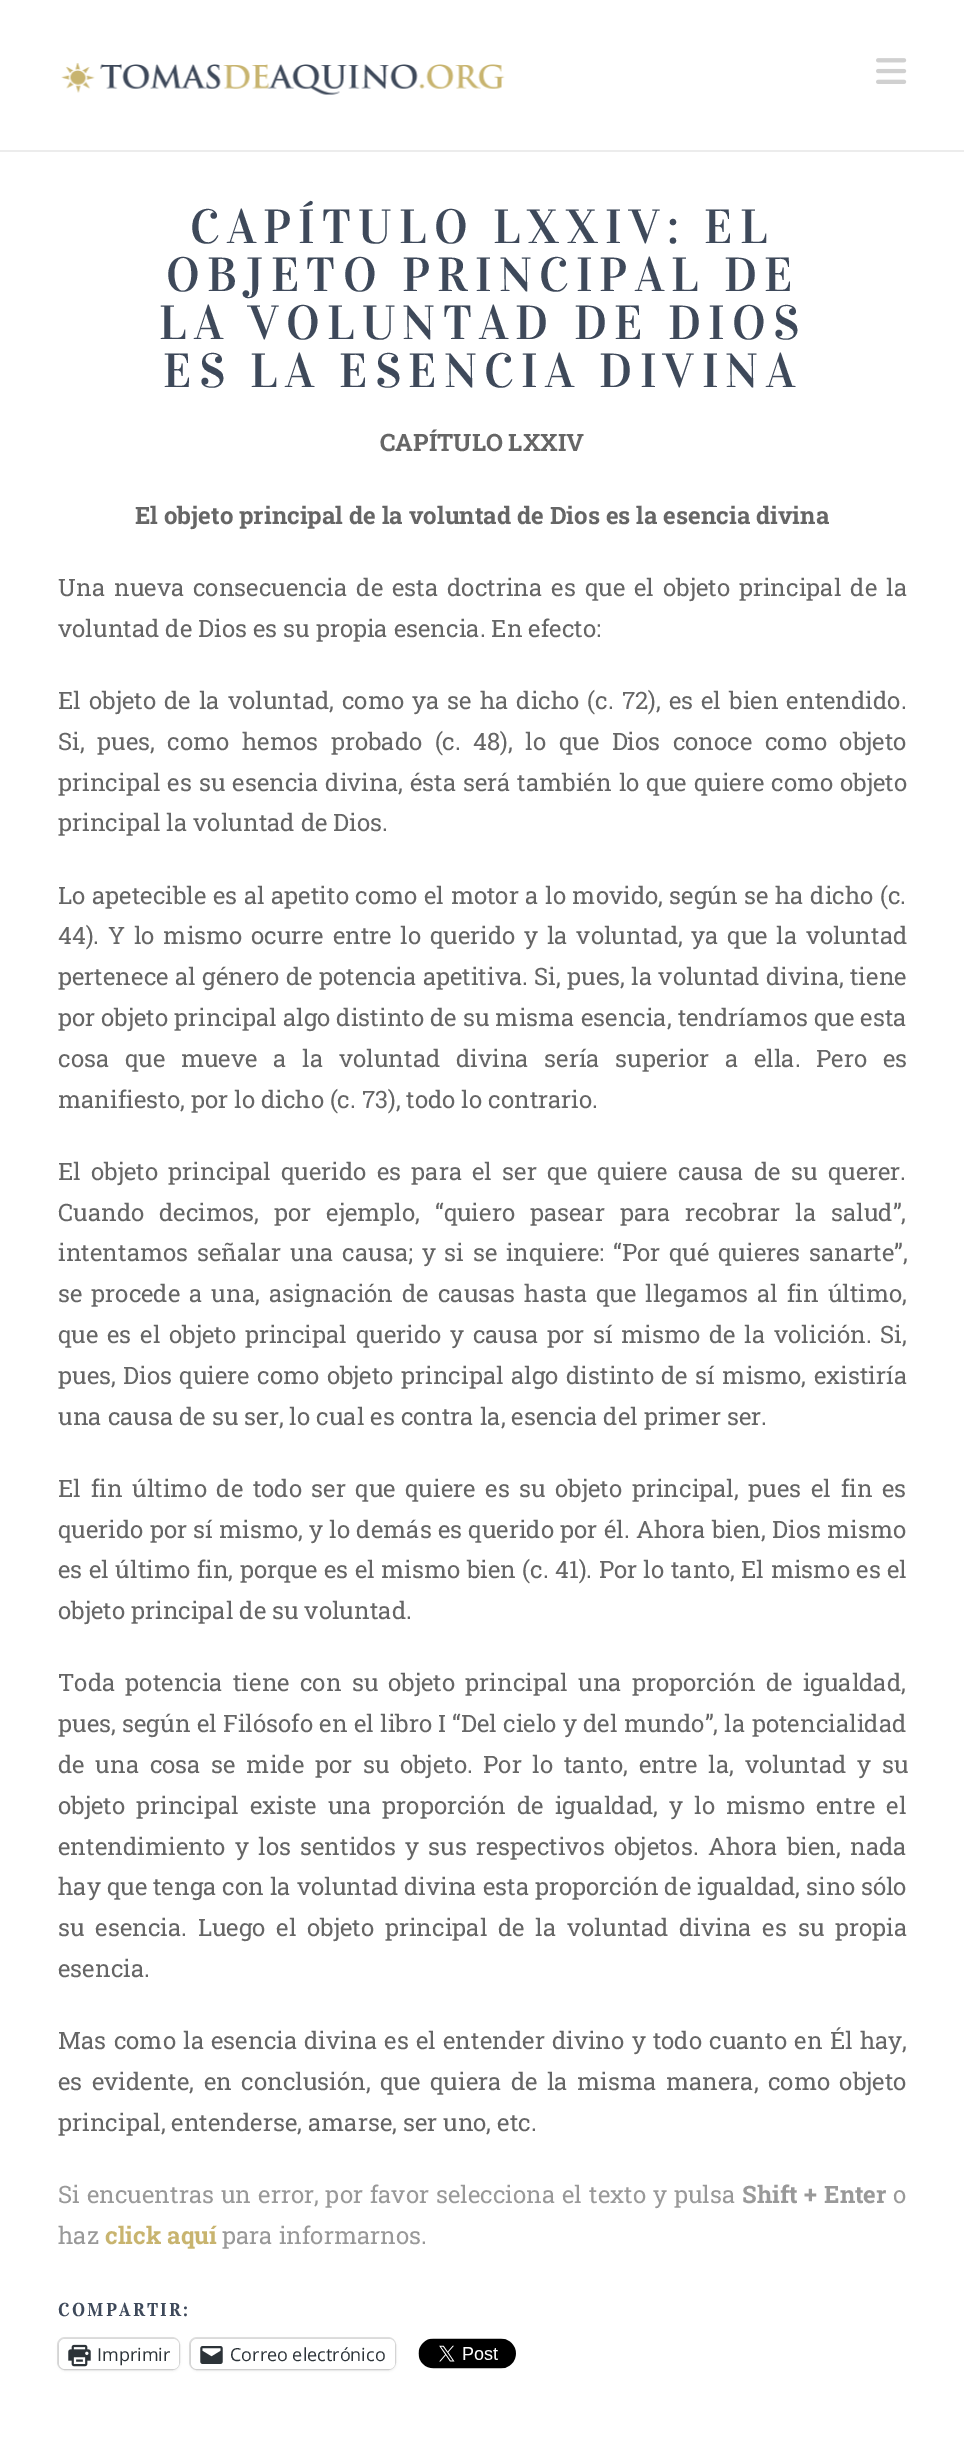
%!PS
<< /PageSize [964 2447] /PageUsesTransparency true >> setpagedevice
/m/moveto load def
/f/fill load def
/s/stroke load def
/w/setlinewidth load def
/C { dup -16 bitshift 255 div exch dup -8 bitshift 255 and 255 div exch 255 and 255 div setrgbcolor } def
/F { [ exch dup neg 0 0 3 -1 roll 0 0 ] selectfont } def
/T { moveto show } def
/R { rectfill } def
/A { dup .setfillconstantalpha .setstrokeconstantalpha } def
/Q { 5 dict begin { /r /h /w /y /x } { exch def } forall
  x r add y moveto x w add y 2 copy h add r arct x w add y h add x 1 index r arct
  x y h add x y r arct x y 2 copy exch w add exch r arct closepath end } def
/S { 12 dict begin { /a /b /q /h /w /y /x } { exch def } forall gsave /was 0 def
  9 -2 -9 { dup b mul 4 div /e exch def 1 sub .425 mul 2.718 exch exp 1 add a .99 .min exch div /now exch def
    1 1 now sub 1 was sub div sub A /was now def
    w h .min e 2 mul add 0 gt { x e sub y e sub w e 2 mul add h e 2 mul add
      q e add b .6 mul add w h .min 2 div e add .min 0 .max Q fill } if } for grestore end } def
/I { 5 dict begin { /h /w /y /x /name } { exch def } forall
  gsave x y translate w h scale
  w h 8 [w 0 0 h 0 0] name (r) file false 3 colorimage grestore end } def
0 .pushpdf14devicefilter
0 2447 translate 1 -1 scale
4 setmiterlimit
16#FFFFFF C
0 0 964 2447 R
16#ECECEC C
0 150 964 2 R
(1.rgb) 61 63 444 32 I
(2.rgb) 876 58 31 26 I
/Vidaloka-Regular 48 F
16#3E495A C
190 243 m 7.25 0 (CAPÍTULO LXXIV: EL) ashow
166 291 m 7.25 0 (OBJETO PRINCIPAL DE) ashow
159 339 m 7.25 0 (LA VOLUNTAD DE DIOS) ashow
163 387 m 7.25 0 (ES LA ESENCIA DIVINA) ashow
/RobotoSlab-Bold 24 F
16#666666 C
(CAPÍTULO LXXIV) 380 451 T
(El objeto principal de la voluntad de Dios es la esencia divina) 135 524 T
/RobotoSlab-Regular 24 F
58 596 m 3 0 32 (Una nueva consecuencia de esta doctrina es que el objeto principal de la) widthshow
(voluntad de Dios es su propia esencia. En efecto:) 58 637 T
58 709 m 2.1 0 32 (El objeto de la voluntad, como ya se ha dicho \(c. 72\), es el bien entendido.) widthshow
58 750 m 6.6 0 32 (Si, pues, como hemos probado \(c. 48\), lo que Dios conoce como objeto) widthshow
58 791 m 1 0 32 (principal es su esencia divina, ésta será también lo que quiere como objeto) widthshow
(principal la voluntad de Dios.) 58 831 T
58 904 m .6 0 32 (Lo apetecible es al apetito como el motor a lo movido, según se ha dicho \(c.) widthshow
58 944 m 2.75 0 32 (44\). Y lo mismo ocurre entre lo querido y la voluntad, ya que la voluntad) widthshow
58 985 m .4 0 32 (pertenece al género de potencia apetitiva. Si, pues, la voluntad divina, tiene) widthshow
58 1026 m .1 0 32 (por objeto principal algo distinto de su misma esencia, tendríamos que esta) widthshow
58 1067 m 9.75 0 32 (cosa que mueve a la voluntad divina sería superior a ella. Pero es) widthshow
(manifiesto, por lo dicho \(c. 73\), todo lo contrario.) 58 1108 T
58 1180 m 4.25 0 32 (El objeto principal querido es para el ser que quiere causa de su querer.) widthshow
58 1221 m 9 0 32 (Cuando decimos, por ejemplo, “quiero pasear para recobrar la salud”,) widthshow
58 1261 m 2.75 0 32 (intentamos señalar una causa; y si se inquiere: “Por qué quieres sanarte”,) widthshow
58 1302 m 3 0 32 (se procede a una, asignación de causas hasta que llegamos al fin último,) widthshow
58 1343 m 2.75 0 32 (que es el objeto principal querido y causa por sí mismo de la volición. Si,) widthshow
58 1384 m 1.5 0 32 (pues, Dios quiere como objeto principal algo distinto de sí mismo, existiría) widthshow
(una causa de su ser, lo cual es contra la, esencia del primer ser.) 58 1425 T
58 1497 m 3.6 0 32 (El fin último de todo ser que quiere es su objeto principal, pues el fin es) widthshow
58 1538 m .3 0 32 (querido por sí mismo, y lo demás es querido por él. Ahora bien, Dios mismo) widthshow
58 1578 m .5 0 32 (es el último fin, porque es el mismo bien \(c. 41\). Por lo tanto, El mismo es el) widthshow
(objeto principal de su voluntad.) 58 1619 T
58 1691 m 4.25 0 32 (Toda potencia tiene con su objeto principal una proporción de igualdad,) widthshow
58 1732 m .3 0 32 (pues, según el Filósofo en el libro I “Del cielo y del mundo”, la potencialidad) widthshow
58 1773 m 4.75 0 32 (de una cosa se mide por su objeto. Por lo tanto, entre la, voluntad y su) widthshow
58 1814 m 5.1 0 32 (objeto principal existe una proporción de igualdad, y lo mismo entre el) widthshow
58 1855 m 3.25 0 32 (entendimiento y los sentidos y sus respectivos objetos. Ahora bien, nada) widthshow
(hay que tenga con la voluntad divina esta proporción de igualdad, sino sólo) 58 1895 T
58 1936 m 4.75 0 32 (su esencia. Luego el objeto principal de la voluntad divina es su propia) widthshow
(esencia.) 58 1977 T
58 2049 m 1.25 0 32 (Mas como la esencia divina es el entender divino y todo cuanto en Él hay,) widthshow
58 2090 m 3.5 0 32 (es evidente, en conclusión, que quiera de la misma manera, como objeto) widthshow
(principal, entenderse, amarse, ser uno, etc.) 58 2131 T
16#999999 C
58 2203 m 1 0 32 (Si encuentras un error, por favor selecciona el texto y pulsa) widthshow
/RobotoSlab-Bold 24 F
742 2203 m 1 0 32 (Shift + Enter) widthshow
/RobotoSlab-Regular 24 F
(o) 893 2203 T
(haz) 58 2244 T
/RobotoSlab-Bold 24 F
16#C8B46F C
(click aquí) 105 2244 T
/RobotoSlab-Regular 24 F
16#999999 C
(para informarnos.) 222 2244 T
/Vidaloka-Bold 18 F
16#3E495A C
58 2316 m 2.75 0 (COMPARTIR:) ashow
16#E0E0E0 C
2 w
58 2338 121 31 7 Q s
16#000000 C
59 2340 120 30 6 1.5 .12 S
16#FFFFFF C
59 2339 120 30 6 Q f
(3.rgb) 68 2344 23 23 I
/OpenSans-Regular 18 F
16#2C3338 C
(Imprimir) 97 2361 T
16#E0E0E0 C
190 2338 205 31 7 Q s
16#000000 C
191 2340 204 30 6 1.5 .12 S
16#FFFFFF C
191 2339 204 30 6 Q f
(4.rgb) 200 2346 23 18 I
16#2C3338 C
(Correo electrónico) 230 2361 T
(5.rgb) 418 2338 98 31 I
.poppdf14devicefilter showpage
